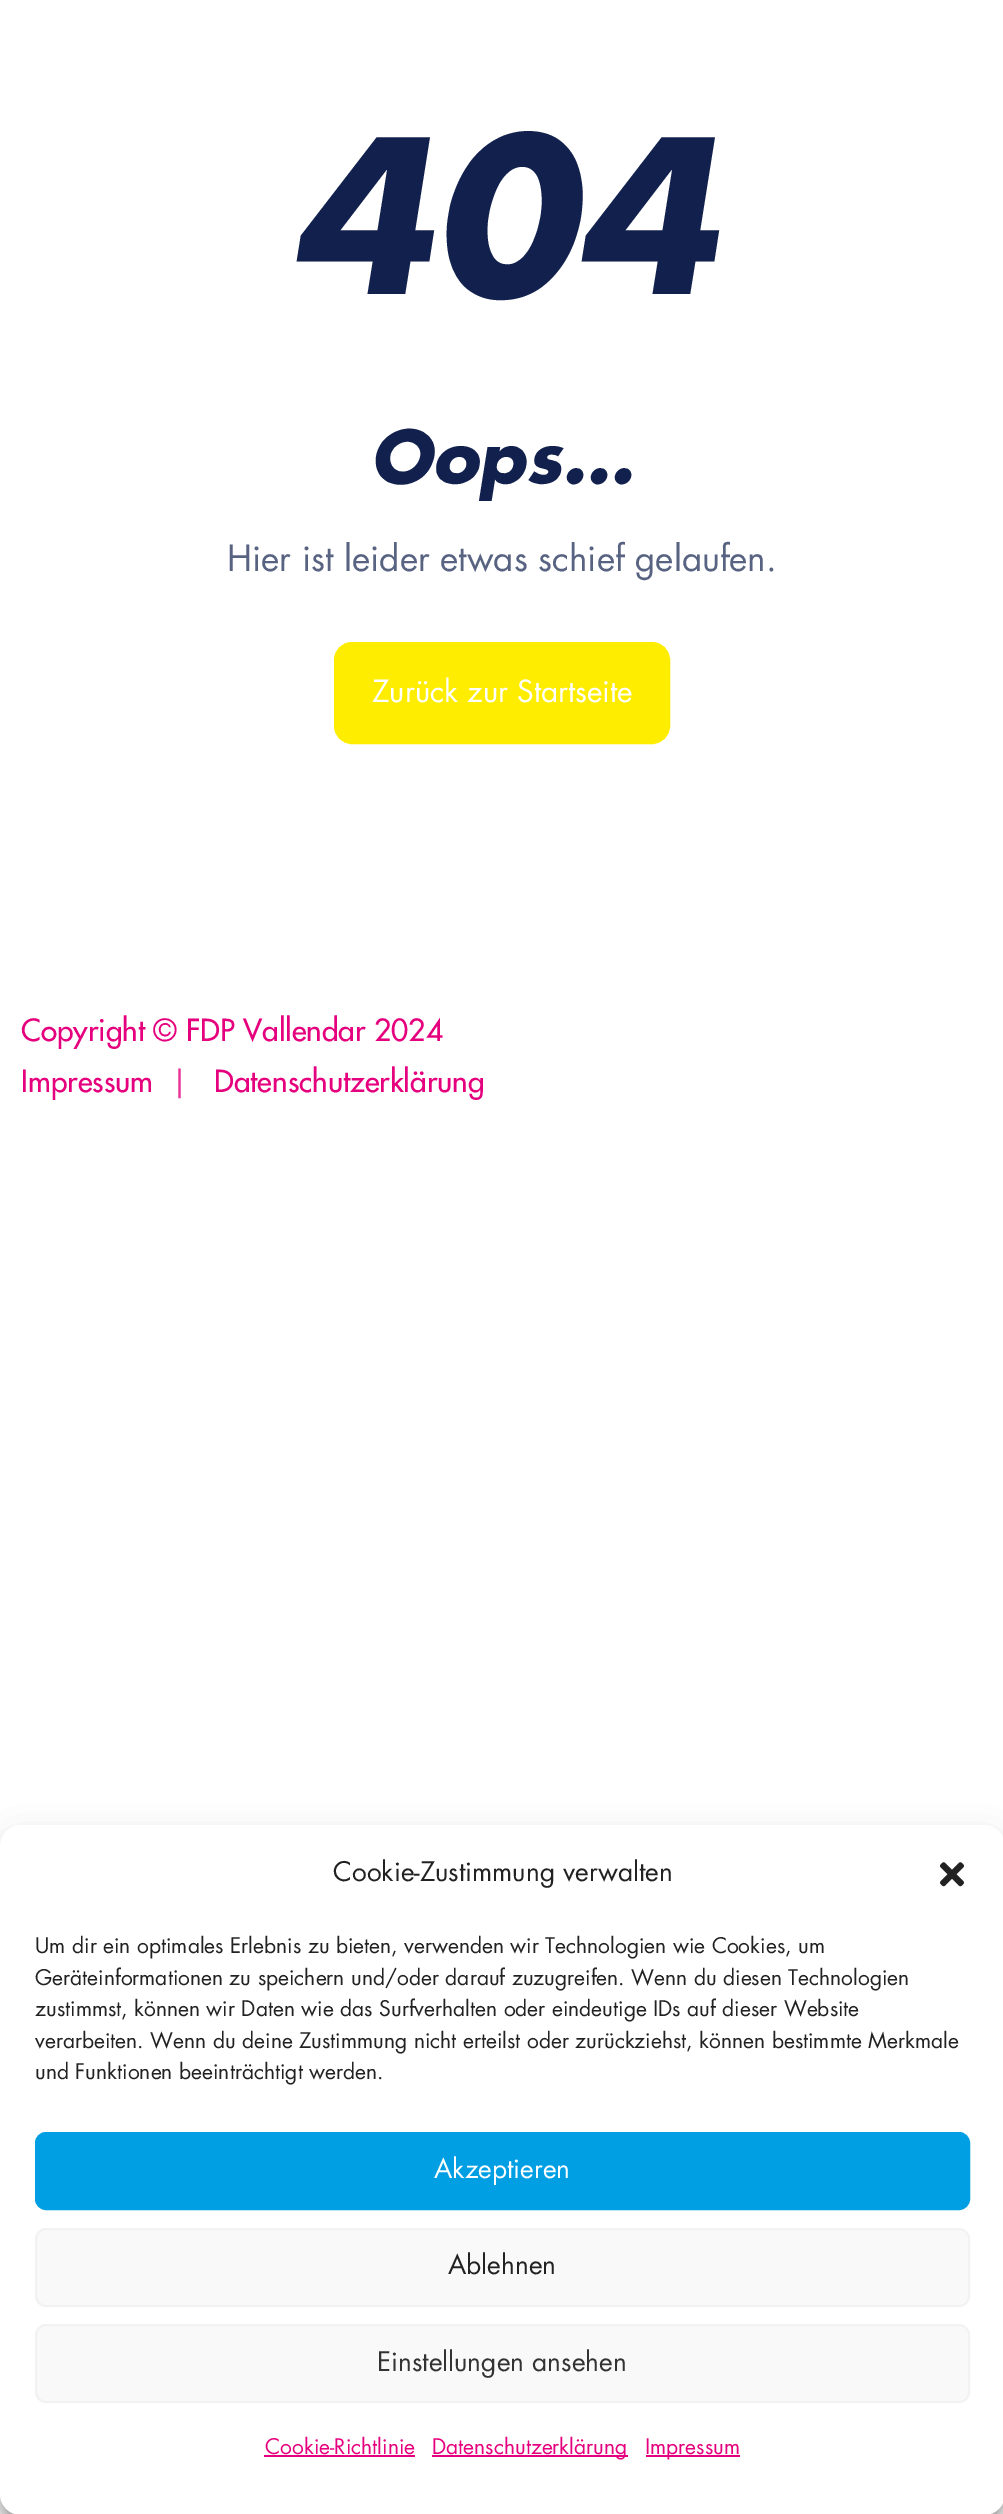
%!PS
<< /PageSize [1003 2514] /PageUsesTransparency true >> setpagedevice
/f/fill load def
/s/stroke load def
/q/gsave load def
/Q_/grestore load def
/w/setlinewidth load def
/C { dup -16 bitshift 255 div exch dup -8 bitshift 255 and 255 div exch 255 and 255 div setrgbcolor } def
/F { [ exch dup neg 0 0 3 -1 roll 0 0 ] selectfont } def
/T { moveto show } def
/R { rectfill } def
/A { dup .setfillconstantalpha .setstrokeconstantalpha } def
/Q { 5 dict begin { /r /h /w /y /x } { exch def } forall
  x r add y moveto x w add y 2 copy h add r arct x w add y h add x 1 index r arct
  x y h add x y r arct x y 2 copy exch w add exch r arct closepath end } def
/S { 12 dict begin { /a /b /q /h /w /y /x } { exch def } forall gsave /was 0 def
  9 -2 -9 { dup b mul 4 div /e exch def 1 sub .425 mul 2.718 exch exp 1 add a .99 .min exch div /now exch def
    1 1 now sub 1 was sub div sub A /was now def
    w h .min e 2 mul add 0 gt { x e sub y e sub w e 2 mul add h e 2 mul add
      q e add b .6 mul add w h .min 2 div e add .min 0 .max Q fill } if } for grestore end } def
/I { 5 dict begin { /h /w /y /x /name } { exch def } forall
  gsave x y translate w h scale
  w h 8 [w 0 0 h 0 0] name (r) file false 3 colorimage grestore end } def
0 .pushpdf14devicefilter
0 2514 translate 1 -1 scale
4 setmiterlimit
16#FFFFFF C
0 0 1003 2514 R
/Futura-BoldItalic 208 F
16#11204D C
(404) 288 294 T
/Futura-BoldItalic 70 F
(Oops...) 370 483 T
/Futura-Regular 35 F
16#586382 C
(Hier ist leider etwas schief gelaufen.) 227 571 T
16#FFED00 C
336 644 332 98 16 Q q f Q_
4 w
s
/Futura-Regular 29.75 F
16#FFFFFF C
(Zurück zur Startseite) 372 702 T
/Futura-Medium 29.75 F
16#E5007D C
(Copyright © FDP Vallendar 2024) 21 1041 T
(Impressum) 21 1092 T
16#EA3397 C
(|) 171 1092 T
16#E5007D C
(Datenschutzerklärung) 214 1092 T
16#000000 C
0 1836 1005 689 21 5 .23 S
0 1843 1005 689 21 17.5 .19 S
16#FFFFFF C
0 1825 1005 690 21 Q f
/Futura-Regular 26.25 F
16#222222 C
(Cookie-Zustimmung verwalten) 333 1881 T
(1.rgb) 940 1862 24 25 I
/Futura-Regular 21 F
(Um dir ein optimales Erlebnis zu bieten, verwenden wir Technologien wie Cookies, um) 35 1953 T
(Geräteinformationen zu speichern und/oder darauf zuzugreifen. Wenn du diesen Technologien) 35 1985 T
(zustimmst, können wir Daten wie das Surfverhalten oder eindeutige IDs auf dieser Website) 35 2016 T
(verarbeiten. Wenn du deine Zustimmung nicht erteilst oder zurückziehst, können bestimmte Merkmale) 35 2048 T
(und Funktionen beeinträchtigt werden.) 35 2079 T
16#009EE3 C
36 2133 933 76 10 Q q f Q_
2 w
s
/Futura-Regular 26.25 F
16#FFFFFF C
(Akzeptieren) 434 2178 T
16#F9F9F9 C
36 2229 933 77 10 Q q f Q_
16#F2F2F2 C
s
16#222222 C
(Ablehnen) 448 2274 T
16#F9F9F9 C
36 2325 933 77 10 Q q f Q_
16#F2F2F2 C
s
16#333333 C
(Einstellungen ansehen) 377 2371 T
/Futura-Regular 21 F
16#E5007D C
(Cookie-Richtlinie) 265 2454 T
264 2455 151 2 R
432 2455 196 2 R
(Datenschutzerklärung) 432 2454 T
646 2455 94 2 R
(Impressum) 645 2454 T
.poppdf14devicefilter showpage
